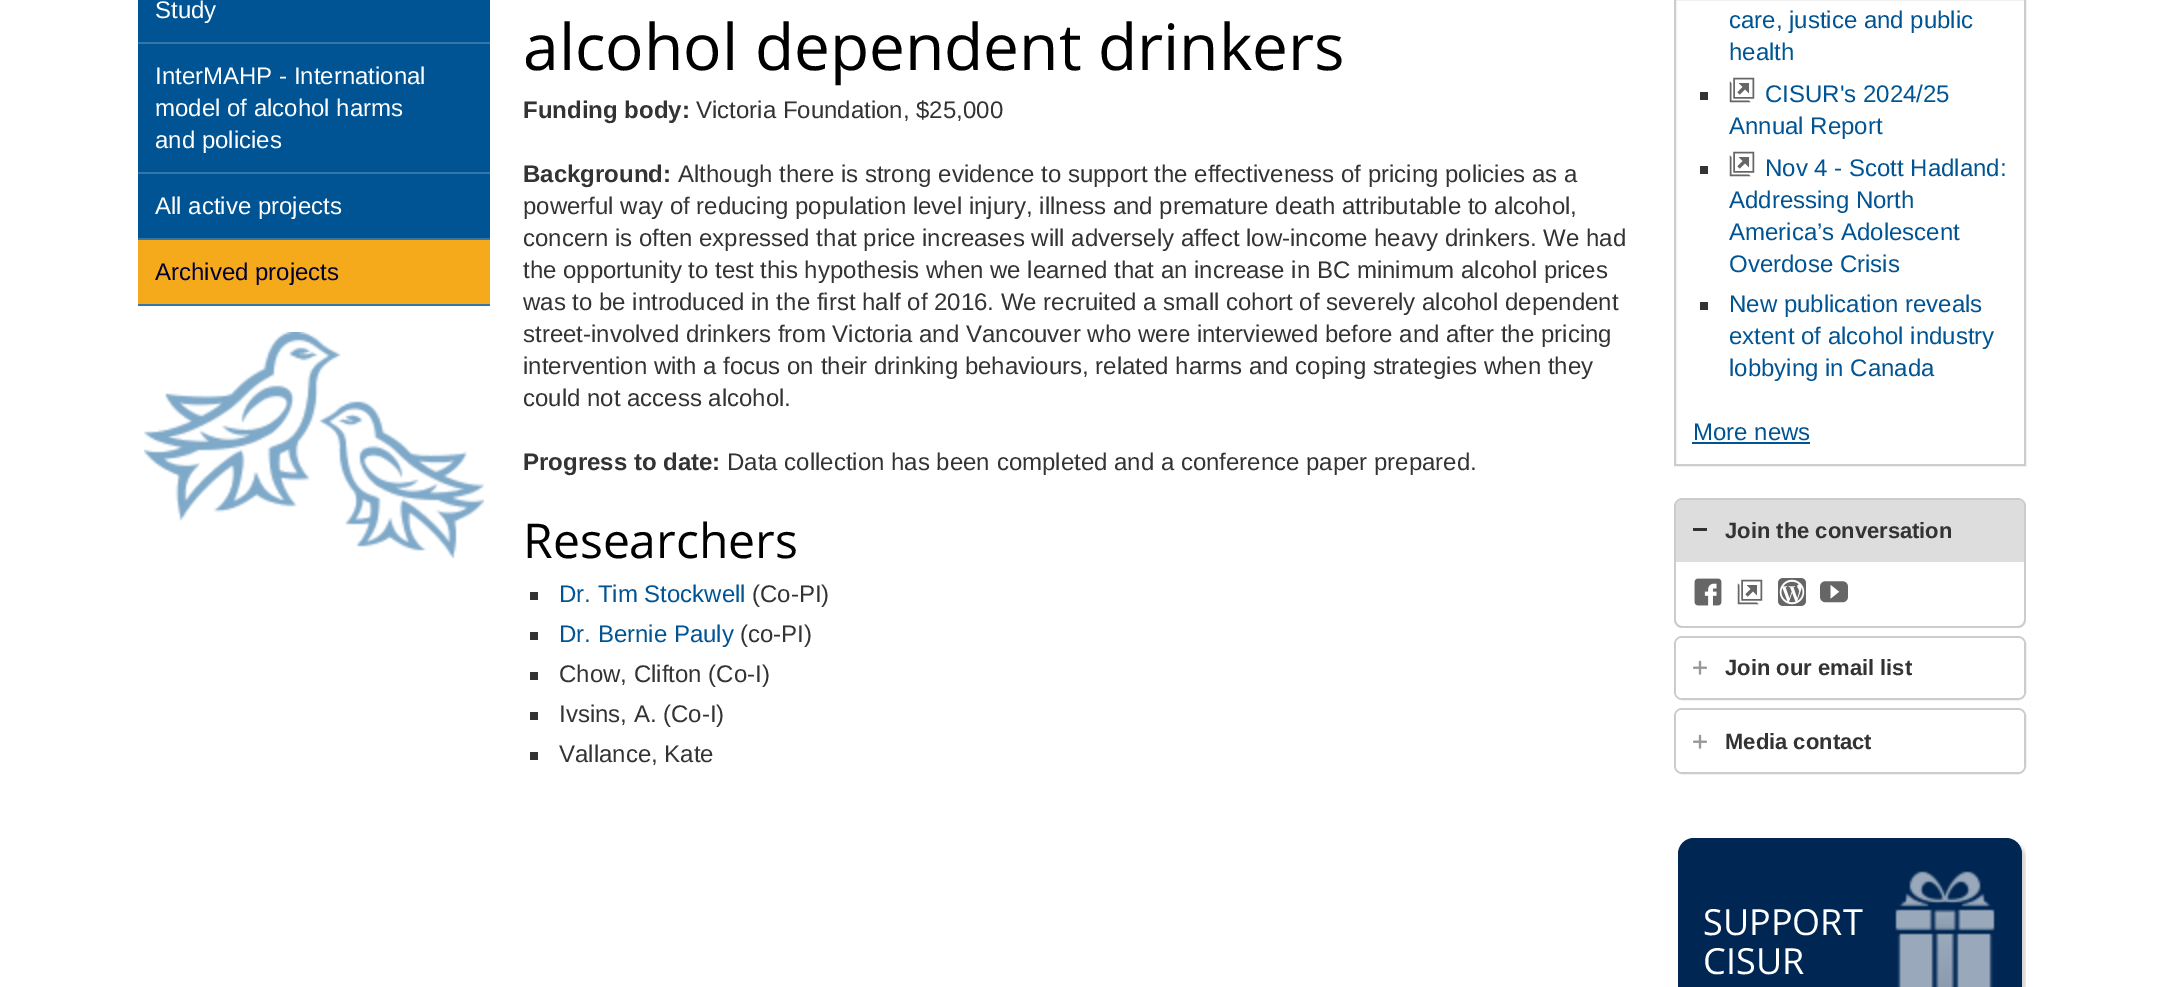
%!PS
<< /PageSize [2166 987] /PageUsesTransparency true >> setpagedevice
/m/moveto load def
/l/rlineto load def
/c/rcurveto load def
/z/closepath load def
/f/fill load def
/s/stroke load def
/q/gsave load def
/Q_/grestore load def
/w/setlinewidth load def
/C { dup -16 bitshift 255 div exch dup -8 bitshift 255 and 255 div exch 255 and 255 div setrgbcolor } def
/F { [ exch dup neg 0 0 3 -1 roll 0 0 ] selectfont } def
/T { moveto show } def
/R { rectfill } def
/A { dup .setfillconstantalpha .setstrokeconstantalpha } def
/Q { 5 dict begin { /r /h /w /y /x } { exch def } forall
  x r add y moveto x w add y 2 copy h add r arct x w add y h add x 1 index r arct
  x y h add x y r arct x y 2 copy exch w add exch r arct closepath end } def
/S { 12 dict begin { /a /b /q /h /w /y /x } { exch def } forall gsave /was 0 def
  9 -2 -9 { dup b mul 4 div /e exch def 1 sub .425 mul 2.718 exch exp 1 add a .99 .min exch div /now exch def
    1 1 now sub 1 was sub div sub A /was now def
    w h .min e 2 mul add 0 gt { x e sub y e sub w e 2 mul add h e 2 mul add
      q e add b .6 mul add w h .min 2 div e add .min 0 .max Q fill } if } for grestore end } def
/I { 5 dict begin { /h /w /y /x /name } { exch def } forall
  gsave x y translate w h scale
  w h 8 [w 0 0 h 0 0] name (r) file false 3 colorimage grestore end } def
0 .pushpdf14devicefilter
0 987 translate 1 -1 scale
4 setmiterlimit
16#FFFFFF C
0 0 2166 987 R
(1.rgb) 144 332 340 226 I
16#005493 C
138 0 352 42 R
16#3376A9 C
138 42 352 2 R
/LiberationSans-Regular 24 F
16#FFFFFF C
(Study) 155 18 T
16#005493 C
138 44 352 128 R
16#3376A9 C
138 172 352 2 R
16#FFFFFF C
(InterMAHP - International) 155 84 T
(model of alcohol harms) 155 116 T
(and policies) 155 148 T
16#005493 C
138 174 352 64 R
16#3376A9 C
138 238 352 2 R
16#FFFFFF C
(All active projects) 155 214 T
16#F5AA1C C
138 240 352 64 R
16#3376A9 C
138 304 352 2 R
16#000033 C
(Archived projects) 155 280 T
/OpenSans-Regular 64 F
16#000000 C
(alcohol dependent drinkers) 523 70 T
/LiberationSans-Bold 24 F
16#333333 C
(Funding body:) 523 118 T
/LiberationSans-Regular 24 F
(Victoria Foundation, $25,000) 696 118 T
/LiberationSans-Bold 24 F
(Background:) 523 182 T
/LiberationSans-Regular 24 F
(Although there is strong evidence to support the effectiveness of pricing policies as a) 678 182 T
(powerful way of reducing population level injury, illness and premature death attributable to alcohol,) 523 214 T
(concern is often expressed that price increases will adversely affect low-income heavy drinkers. We had) 523 246 T
(the opportunity to test this hypothesis when we learned that an increase in BC minimum alcohol prices) 523 278 T
(was to be introduced in the first half of 2016. We recruited a small cohort of severely alcohol dependent) 523 310 T
(street-involved drinkers from Victoria and Vancouver who were interviewed before and after the pricing) 523 342 T
(intervention with a focus on their drinking behaviours, related harms and coping strategies when they) 523 374 T
(could not access alcohol.) 523 406 T
/LiberationSans-Bold 24 F
(Progress to date:) 523 470 T
/LiberationSans-Regular 24 F
(Data collection has been completed and a conference paper prepared.) 727 470 T
/OpenSans-Regular 48 F
16#000000 C
(Researchers) 523 558 T
16#333333 C
530 592 8 8 R
/LiberationSans-Regular 24 F
16#005493 C
(Dr. Tim Stockwell) 559 602 T
16#333333 C
(\(Co-PI\)) 752 602 T
530 632 8 8 R
16#005493 C
(Dr. Bernie Pauly) 559 642 T
16#333333 C
(\(co-PI\)) 740 642 T
530 672 8 8 R
(Chow, Clifton \(Co-I\)) 559 682 T
530 712 8 8 R
(Ivsins, A. \(Co-I\)) 559 722 T
530 752 8 8 R
(Vallance, Kate) 559 762 T
16#CCCCCC C
2 w
1675 -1 350 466 rectstroke
16#005493 C
(care, justice and public) 1729 28 T
(health) 1729 60 T
16#333333 C
1700 92 8 8 R
(2.rgb) 1729 77 26 26 I
16#005493 C
(CISUR's 2024/25) 1765 102 T
(Annual Report) 1729 134 T
16#333333 C
1700 166 8 8 R
(2.rgb) 1729 151 26 26 I
16#005493 C
(Nov 4 - Scott Hadland:) 1765 176 T
(Addressing North) 1729 208 T
(America’s Adolescent) 1729 240 T
(Overdose Crisis) 1729 272 T
16#333333 C
1700 302 8 8 R
16#005493 C
(New publication reveals) 1729 312 T
(extent of alcohol industry) 1729 344 T
(lobbying in Canada) 1729 376 T
(More news) 1693 440 T
1692 442 118 2 R
16#CCCCCC C
1682 498 m 336 0 l 4 0 8 4 8 8 c 0 56 l -352 0 l 0 -56 l 0 -4 4 -8 8 -8 c z 1682 500 m 336 0 l 3 0 6 3 6 6 c 0 56 l -348 0 l 0 -56 l 0 -3 3 -6 6 -6 c z eofill
16#DDDDDD C
1682 500 m 336 0 l 3.5 0 6 2.5 6 6 c 0 56 l -348 0 l 0 -56 l 0 -3.5 2.5 -6 6 -6 c z f
16#333333 C
1693 528 14 3 R
/LiberationSans-Bold 22 F
(Join the conversation) 1725 538 T
16#CCCCCC C
1674 562 m 352 0 l 0 58 l 0 4 -4 8 -8 8 c -336 0 l -4 0 -8 -4 -8 -8 c z 1676 562 m 348 0 l 0 58 l 0 3 -3 6 -6 6 c -336 0 l -3 0 -6 -3 -6 -6 c z eofill
(3.rgb) 1694 578 28 28 I
(2.rgb) 1737 579 26 26 I
(4.rgb) 1778 578 28 28 I
(5.rgb) 1820 581 28 22 I
1675 637 350 62 7 Q s
16#FFFFFF C
1676 638 348 60 6 Q f
(6.rgb) 1693 660 14 15 I
16#333333 C
(Join our email list) 1725 675 T
16#CCCCCC C
1675 709 350 64 7 Q s
16#FFFFFF C
1676 710 348 62 6 Q f
(6.rgb) 1693 734 14 15 I
16#333333 C
(Media contact) 1725 749 T
q
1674 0 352 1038 rectclip
16#000000 C
1682 842 344 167 16 2 .16 S
Q_
16#002754 C
1678 838 344 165 16 Q f
/OpenSans-Regular 36 F
16#FFFFFF C
(SUPPORT) 1703 935 T
(CISUR) 1703 974 T
(7.rgb) 1895 871 100 116 I
.poppdf14devicefilter showpage
